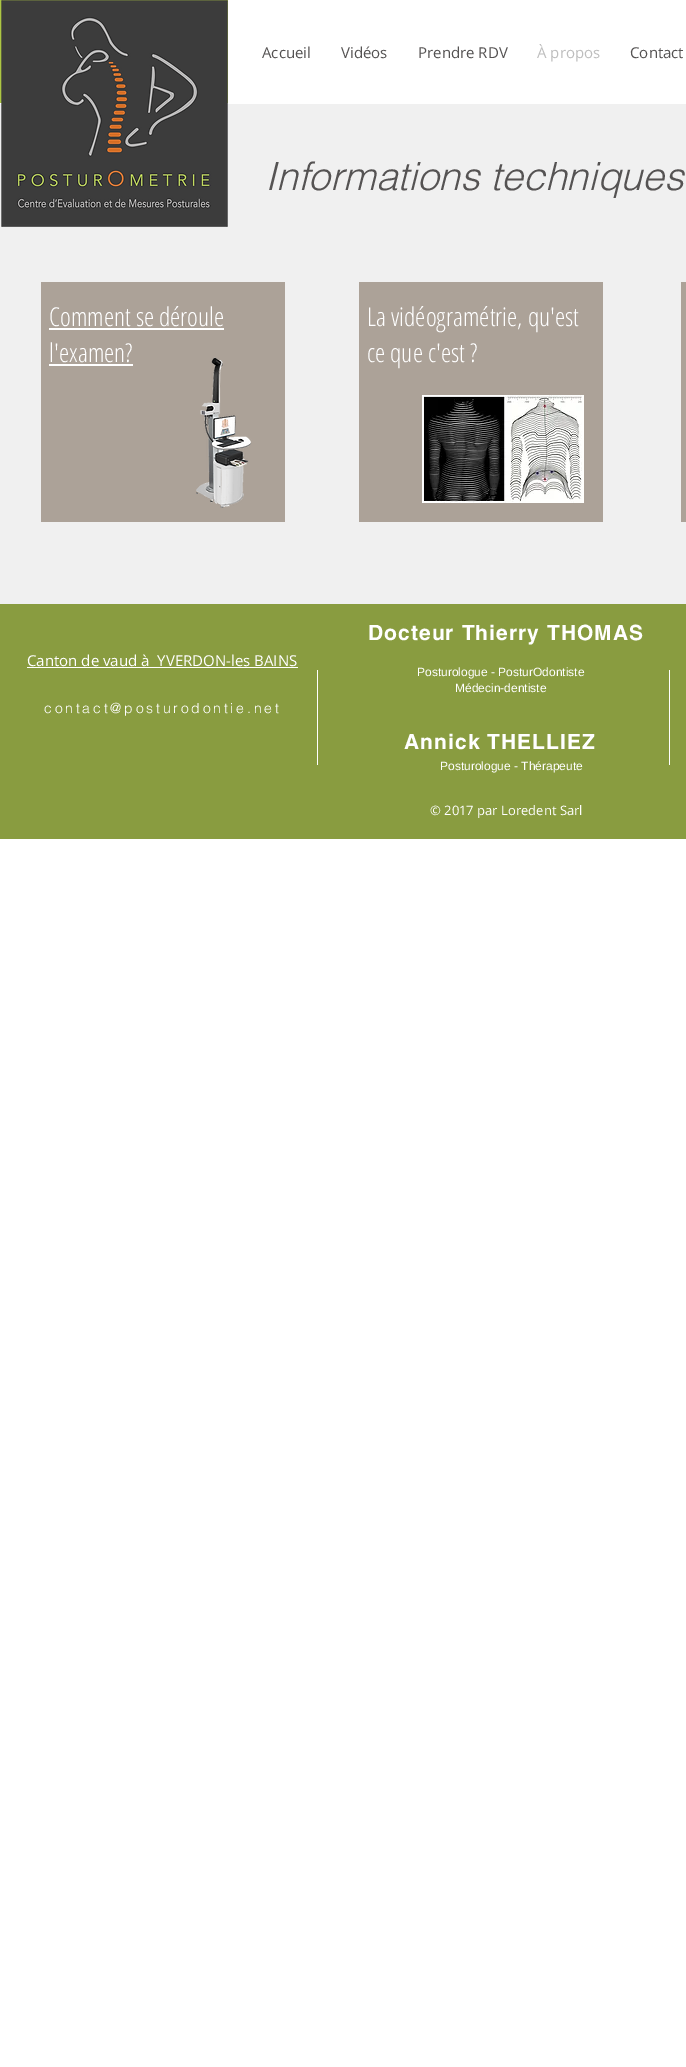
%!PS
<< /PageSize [686 2067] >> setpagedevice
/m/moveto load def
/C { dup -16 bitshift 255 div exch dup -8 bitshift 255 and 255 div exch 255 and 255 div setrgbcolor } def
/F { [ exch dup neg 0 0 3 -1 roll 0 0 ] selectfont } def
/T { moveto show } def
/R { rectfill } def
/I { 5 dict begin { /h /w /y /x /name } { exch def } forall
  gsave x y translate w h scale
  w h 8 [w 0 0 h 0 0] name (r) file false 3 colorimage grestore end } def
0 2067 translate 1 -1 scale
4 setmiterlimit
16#FFFFFF C
0 0 686 2067 R
16#ADC743 C
0 0 228 103 R
/OpenSans-Regular 15 F
16#555353 C
(Accueil) 262 58 T
(Vidéos) 341 58 T
(Prendre RDV) 418 58 T
16#BEBEBE C
(À propos) 537 58 T
16#555353 C
(Contact) 630 58 T
16#F0F0F0 C
0 104 686 500 R
(1.rgb) 1 0 227 227 I
/helvetica-LightItalic 39 F
16#555353 C
(Informations techniques) 265 190 T
16#ACA298 C
41 282 244 240 R
/OpenSansCondensed-Light 26 F
16#FFFFFF C
(Comment se déroule) 49 326 T
49 328 175 2 R
(l'examen?) 49 362 T
49 364 84 2 R
(2.rgb) 196 357 56 151 I
16#ACA298 C
359 282 244 240 R
16#FFFFFF C
(La vidéogramétrie, qu'est) 367 326 T
(ce que c'est ?) 367 362 T
(3.rgb) 422 395 162 108 I
16#ACA298 C
681 282 5 240 R
16#899C40 C
0 604 686 235 R
/helvetica-Bold 21 F
16#FFFFFF C
368 640 m 1.05 0 (Docteur Thierry THOMAS) ashow
/OpenSans-Regular 15 F
(Canton de vaud à  YVERDON-les BAINS) 27 666 T
27 667 271 1 R
/LiberationSans-Regular 12 F
(Posturologue - PosturOdontiste) 417 676 T
(Médecin-dentiste) 455 692 T
/helvetica-Light 14 F
44 713 m 2.8 0 (contact@posturodontie.net) ashow
/helvetica-Bold 21 F
404 749 m 1.05 0 (Annick THELLIEZ) ashow
/LiberationSans-Regular 12 F
(Posturologue - Thérapeute) 440 770 T
/OpenSans-Regular 13 F
(© 2017 par Loredent Sarl) 430 815 T
317 670 1 95 R
669 670 1 95 R
showpage
